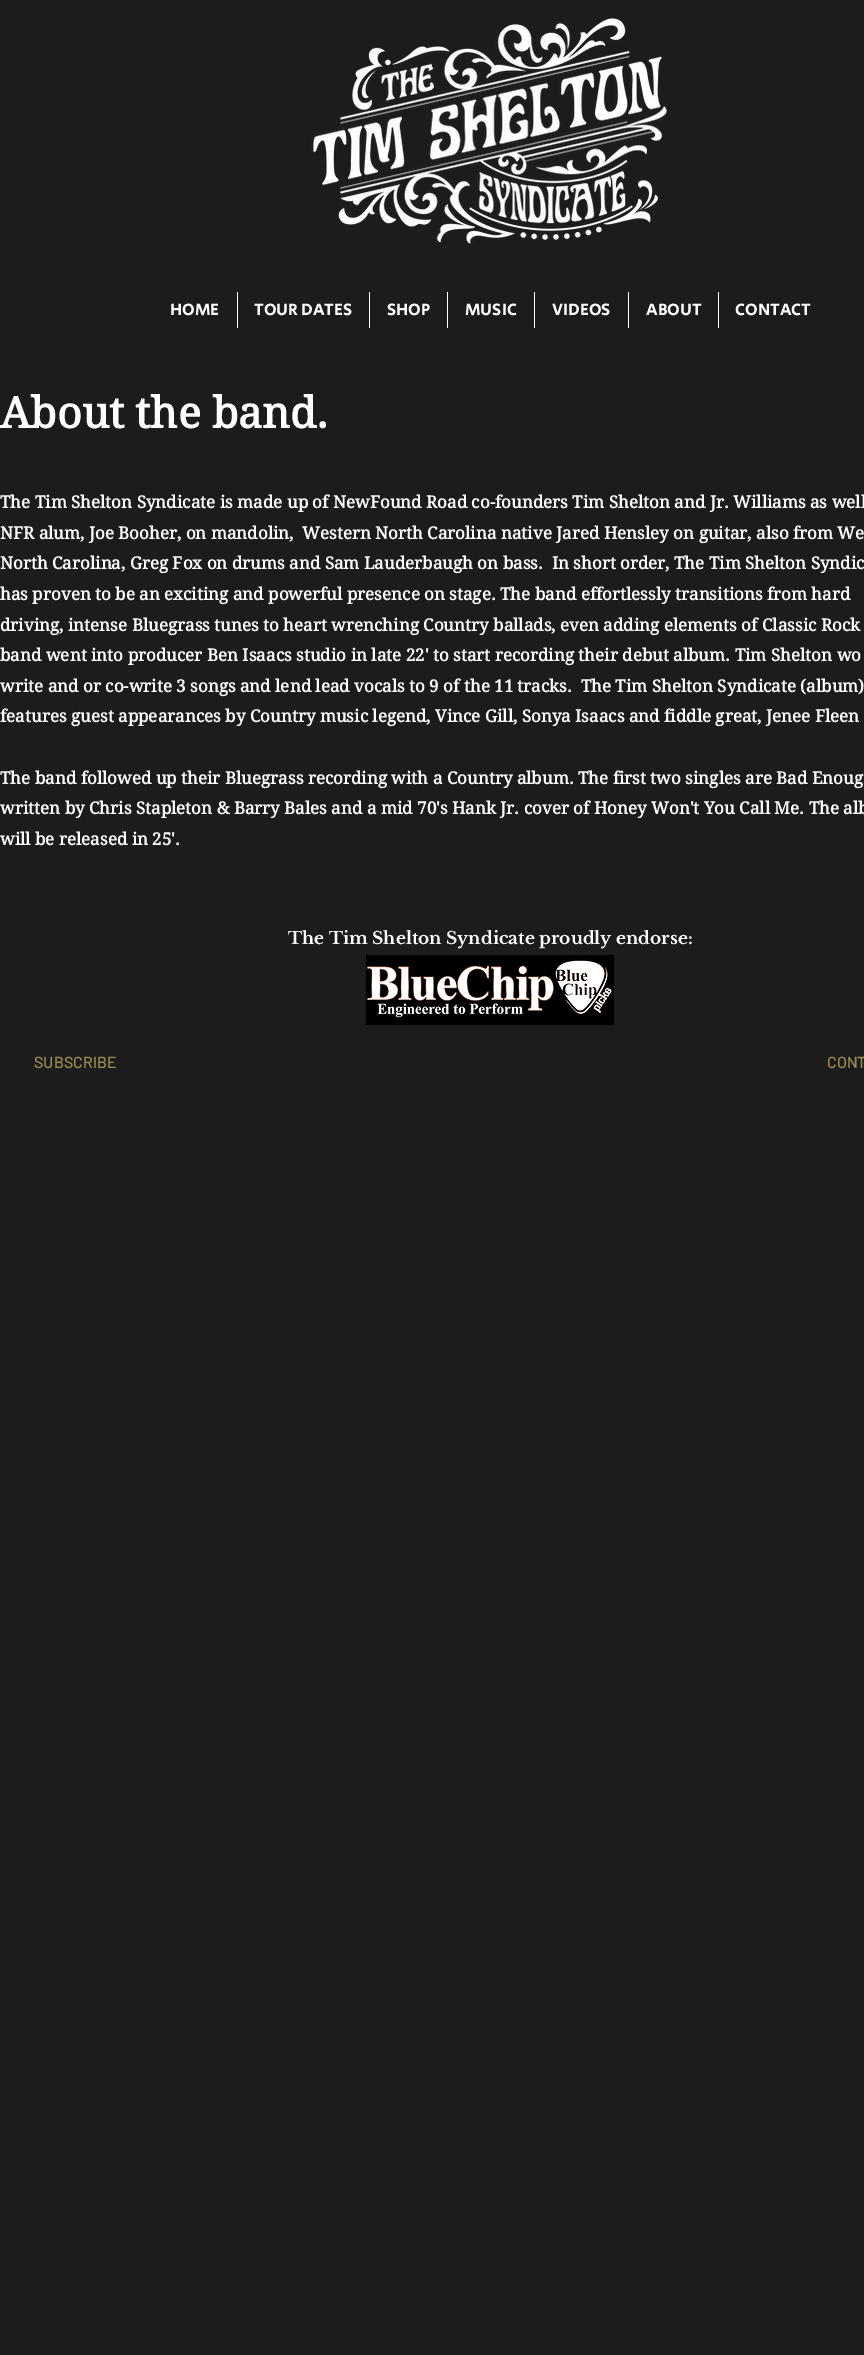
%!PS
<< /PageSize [864 2355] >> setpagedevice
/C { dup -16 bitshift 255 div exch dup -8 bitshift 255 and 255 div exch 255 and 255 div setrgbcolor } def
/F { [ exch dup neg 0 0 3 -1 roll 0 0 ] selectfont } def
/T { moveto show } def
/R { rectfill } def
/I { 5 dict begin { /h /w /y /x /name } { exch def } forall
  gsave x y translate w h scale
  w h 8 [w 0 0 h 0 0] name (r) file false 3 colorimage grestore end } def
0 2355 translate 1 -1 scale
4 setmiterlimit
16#1D1C1C C
0 0 864 2355 R
(1.rgb) 311 18 356 226 I
/SecularOne-Regular 17 F
16#FFFFFF C
(HOME) 170 315 T
237 292 1 36 R
(TOUR DATES) 254 315 T
369 292 1 36 R
(SHOP) 387 315 T
447 292 1 36 R
(MUSIC) 465 315 T
534 292 1 36 R
(VIDEOS) 552 315 T
628 292 1 36 R
(ABOUT) 646 315 T
718 292 1 36 R
(CONTACT) 735 315 T
/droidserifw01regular-Bold 43 F
(About the band.) 0 428 T
/droidserifw01regular-Bold 17 F
(The Tim Shelton Syndicate is made up of NewFound Road co-founders Tim Shelton and Jr. Williams as well) 0 508 T
(NFR alum, Joe Booher, on mandolin,  Western North Carolina native Jared Hensley on guitar, also from We) 0 539 T
(North Carolina, Greg Fox on drums and Sam Lauderbaugh on bass.  In short order, The Tim Shelton Syndic) 0 569 T
(has proven to be an exciting and powerful presence on stage. The band effortlessly transitions from hard) 0 600 T
(driving, intense Bluegrass tunes to heart wrenching Country ballads, even adding elements of Classic Rock) 0 631 T
(band went into producer Ben Isaacs studio in late 22' to start recording their debut album. Tim Shelton wo) 0 661 T
(write and or co-write 3 songs and lend lead vocals to 9 of the 11 tracks.  The Tim Shelton Syndicate \(album\)) 0 692 T
(features guest appearances by Country music legend, Vince Gill, Sonya Isaacs and fiddle great, Jenee Fleen) 0 722 T
(The band followed up their Bluegrass recording with a Country album. The first two singles are Bad Enoug) 0 784 T
(written by Chris Stapleton & Barry Bales and a mid 70's Hank Jr. cover of Honey Won't You Call Me. The alb) 0 814 T
(will be released in 25'.) 0 845 T
/LibreBaskerville-Bold 17 F
(The Tim Shelton Syndicate proudly endorse:) 288 944 T
(2.rgb) 366 955 248 70 I
/Barlow-Medium 16 F
16#9A8E4B C
(SUBSCRIBE) 34 1068 T
(CONT) 827 1068 T
showpage
